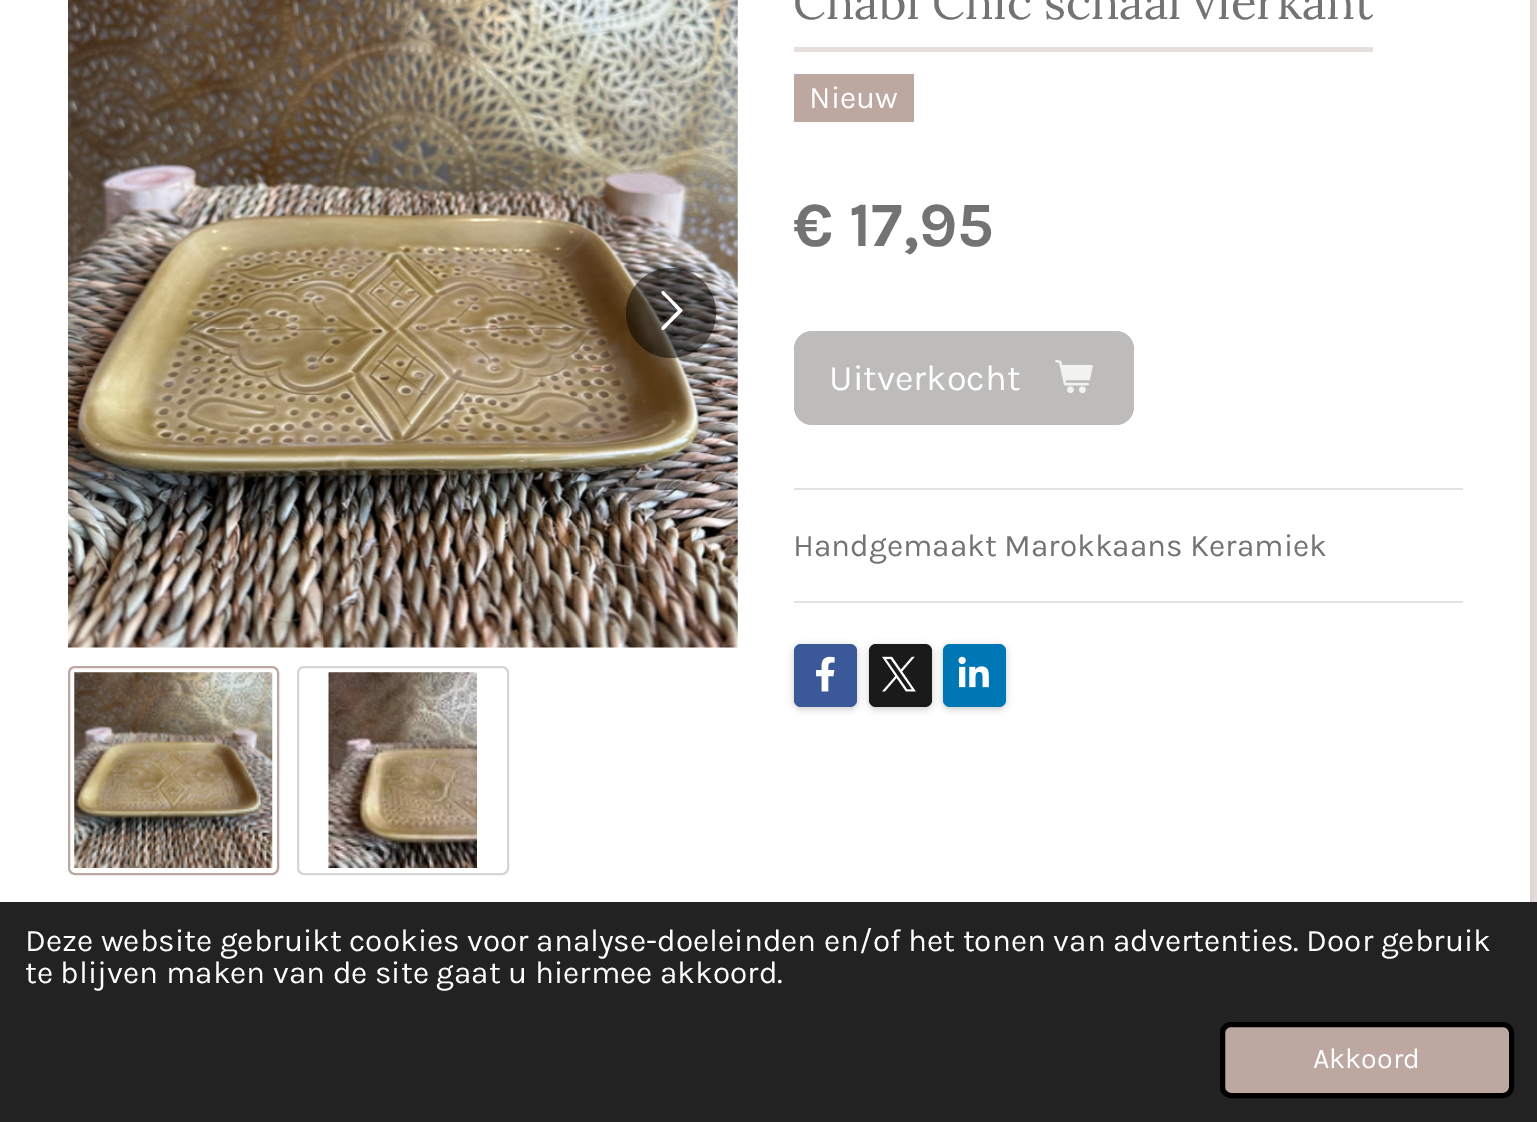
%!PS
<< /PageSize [1537 1122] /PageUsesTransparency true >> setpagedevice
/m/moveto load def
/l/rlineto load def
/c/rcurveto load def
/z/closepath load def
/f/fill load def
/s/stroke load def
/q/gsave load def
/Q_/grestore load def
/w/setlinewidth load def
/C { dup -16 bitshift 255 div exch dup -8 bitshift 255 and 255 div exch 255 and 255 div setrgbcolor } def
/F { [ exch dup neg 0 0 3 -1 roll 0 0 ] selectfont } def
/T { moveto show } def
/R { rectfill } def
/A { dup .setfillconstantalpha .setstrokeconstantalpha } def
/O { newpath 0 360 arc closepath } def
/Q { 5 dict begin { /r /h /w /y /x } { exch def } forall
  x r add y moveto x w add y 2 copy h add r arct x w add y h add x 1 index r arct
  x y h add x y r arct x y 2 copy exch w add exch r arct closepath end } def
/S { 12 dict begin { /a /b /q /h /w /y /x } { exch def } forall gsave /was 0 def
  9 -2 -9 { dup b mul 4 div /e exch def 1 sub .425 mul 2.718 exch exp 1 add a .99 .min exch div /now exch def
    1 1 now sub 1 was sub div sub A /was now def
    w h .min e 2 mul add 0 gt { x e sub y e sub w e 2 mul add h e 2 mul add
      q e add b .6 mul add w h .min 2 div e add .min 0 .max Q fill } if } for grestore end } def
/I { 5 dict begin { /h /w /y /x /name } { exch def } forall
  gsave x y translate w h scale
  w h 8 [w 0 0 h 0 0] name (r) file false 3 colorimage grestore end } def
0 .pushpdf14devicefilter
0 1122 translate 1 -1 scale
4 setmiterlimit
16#E7DFDD C
0 0 1537 1122 R
16#000000 C
0 -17 1530 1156 0 5.5 .1 S
16#FFFFFF C
0 0 1530 902 R
(1.rgb) 68 0 670 648 I
0.5 A
16#000000 C
671 313 45 O f
1 A
16#FFFFFF C
662 327 m 16 -16.5 l -13 -14 l -1 -.5 -6 -4.5 -2 -5.5 c 1 .5 l 18 18 l .5 .5 l 0 1 l -15.5 15.5 l 0 0 -4.5 6 -5.5 2 c z f
16#BDA7A1 C
2 w
69 667 209 207 6 Q s
(2.rgb) 74 672 199 196 I
16#D5D5D5 C
298 667 210 207 6 Q s
(3.rgb) 328 672 149 196 I
16#E7DFDD C
794 47 579 5 R
/Lora-Regular 47.25 F
16#737373 C
(Chabi Chic schaal vierkant) 793 19 T
16#BDA7A1 C
794 74 120 48 R
/Karla-Regular 31.5 F
16#FFFFFF C
(Nieuw) 809 108 T
/Karla-Bold 63 F
16#737373 C
(€ 17,95) 793 246 T
16#BDBCBB C
794 331 340 94 18 Q f
/Karla-Regular 36 F
16#FFFFFF C
(Uitverkocht) 829 390 T
(4.rgb) 1055 359 38 35 I
16#E3E3E3 C
794 488 669 2 R
/Karla-Regular 31.5 F
16#737373 C
(Handgemaakt Marokkaans Keramiek) 793 556 T
16#E3E3E3 C
794 601 669 2 R
16#000000 C
794 646 63 63 7 3.5 .2 S
16#3B5998 C
794 644 63 63 7 Q f
(5.rgb) 816 656 19 36 I
16#000000 C
869 646 63 63 7 3.5 .2 S
16#1A1A1A C
869 644 63 63 7 Q f
(6.rgb) 882 656 34 36 I
16#000000 C
943 646 63 63 7 3.5 .2 S
16#0077B5 C
943 644 63 63 7 Q f
(7.rgb) 958 656 31 32 I
16#222222 C
0 902 1537 220 R
16#FFFFFF C
(Deze website gebruikt cookies voor analyse-doeleinden en/of het tonen van advertenties. Door gebruik) 25 951 T
(te blijven maken van de site gaat u hiermee akkoord.) 25 983 T
16#BDA7A1 C
1222.5 1024.5 289 71 8.5 Q q f Q_
16#000000 C
5 w
s
/Karla-Regular 28.5 F
16#FFFFFF C
(Akkoord) 1313 1068 T
.poppdf14devicefilter showpage
